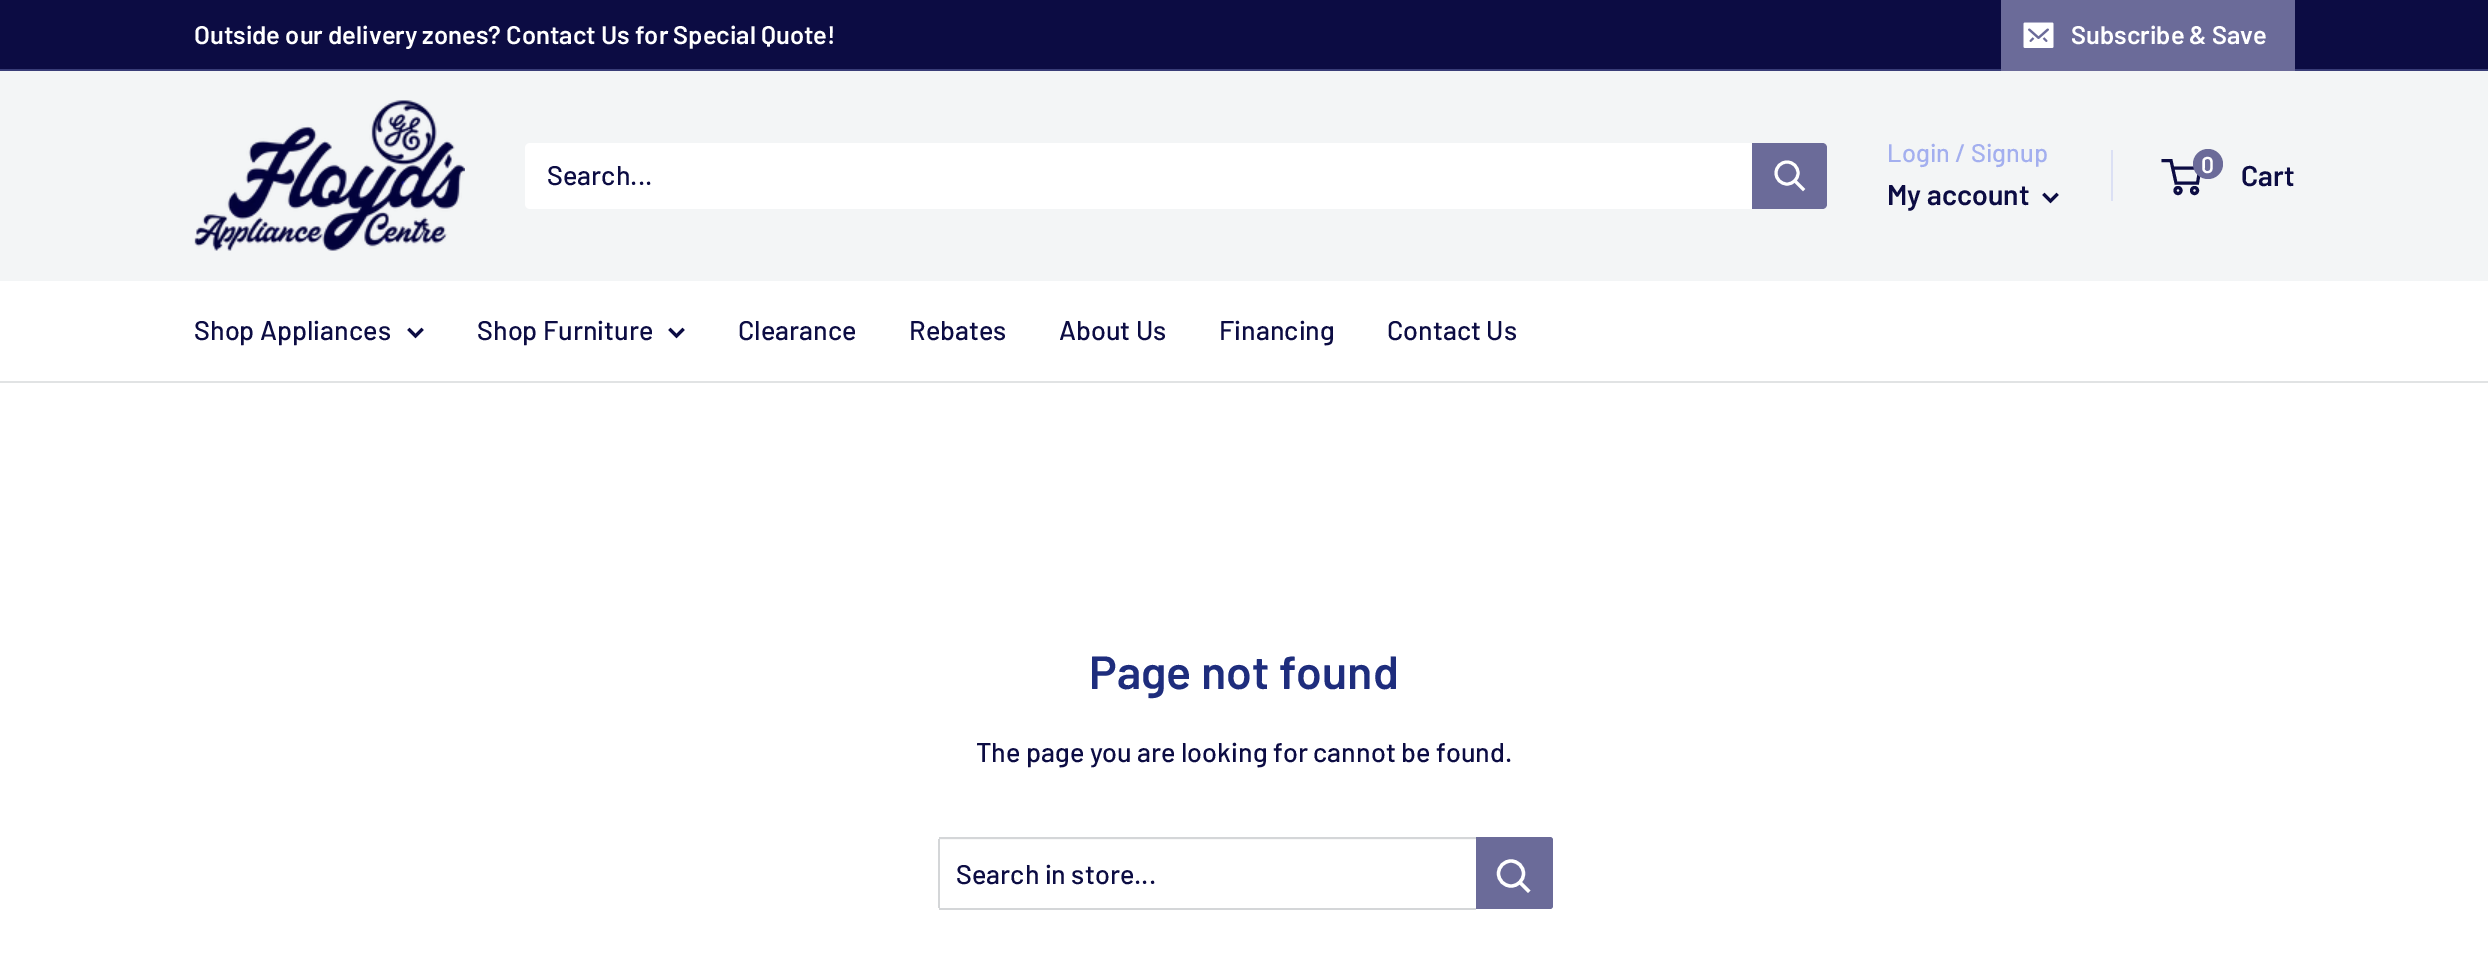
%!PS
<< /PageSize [2488 975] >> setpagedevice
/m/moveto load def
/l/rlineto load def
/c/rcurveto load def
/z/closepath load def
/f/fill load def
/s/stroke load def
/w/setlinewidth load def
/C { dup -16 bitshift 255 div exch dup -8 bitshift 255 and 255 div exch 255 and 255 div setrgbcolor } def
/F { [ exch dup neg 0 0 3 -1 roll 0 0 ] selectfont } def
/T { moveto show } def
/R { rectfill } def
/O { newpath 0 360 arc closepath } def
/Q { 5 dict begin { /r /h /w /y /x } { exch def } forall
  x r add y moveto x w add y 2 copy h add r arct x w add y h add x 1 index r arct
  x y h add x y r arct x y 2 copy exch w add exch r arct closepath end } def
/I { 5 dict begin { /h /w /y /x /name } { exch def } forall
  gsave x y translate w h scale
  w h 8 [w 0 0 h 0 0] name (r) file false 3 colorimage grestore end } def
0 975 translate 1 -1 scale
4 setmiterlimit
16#FFFFFF C
0 0 2488 975 R
16#0C0C43 C
0 0 2488 69 R
16#393D77 C
0 69 2488 2 R
/Barlow-SemiBold 25.5 F
16#FFFFFF C
(Outside our delivery zones? Contact Us for Special Quote!) 194 44 T
16#6B6B99 C
2001 0 294 71 R
(1.rgb) 2023 22 31 26 I
16#FFFFFF C
(Subscribe & Save) 2071 44 T
16#F3F5F6 C
0 71 2488 210 R
(2.rgb) 194 100 271 151 I
16#FFFFFF C
525 143 1302 66 5 Q f
/Barlow-Medium 27 F
16#0C0C43 C
(Search...) 547 185 T
16#6B6B99 C
1752 143 m 70 0 l 3 0 5 2 5 5 c 0 56 l 0 3 -2 5 -5 5 c -70 0 l z f
16#FFFFFF C
3 w
2 setlinecap
1803 189 m -7.5 -7.5 l s
0 setlinecap
1787 173 11 O s
/Barlow-Medium 25.5 F
16#A3AFEF C
(Login / Signup) 1887 162 T
16#DBE0F4 C
2111 150 2 51 R
/Barlow-SemiBold 28.5 F
16#0C0C43 C
(My account) 1887 205 T
2 setlinecap
2056.5 195 m -6 6 l -6 -6 l s
0 setlinecap
2178 190.5 3 O s
2194.5 190.5 3 O s
2172.5 168 m 27.5 0 l -2.5 15 l -21.5 0 l -5 -22.5 l -9.5 0 l s
16#6B6B99 C
2208 164 15 O f
/Barlow-SemiBold 23 F
16#FFFFFF C
(0) 2201 173 T
/Barlow-SemiBold 28.5 F
16#0C0C43 C
(Cart) 2241 186 T
16#E1E3E4 C
0 381 2488 2 R
/Barlow-Medium 27 F
16#0C0C43 C
(Shop Appliances) 194 340 T
2 setlinecap
421.5 330 m -6 6 l -6 -6 l s
(Shop Furniture) 477 340 T
682.5 330 m -6 6 l -6 -6 l s
(Clearance) 738 340 T
(Rebates) 909 340 T
(About Us) 1059 340 T
(Financing) 1219 340 T
(Contact Us) 1387 340 T
/Barlow-SemiBold 46.5 F
16#1E2D7D C
(Page not found) 1089 689 T
/Barlow-Medium 27 F
16#0C0C43 C
(The page you are looking for cannot be found.) 976 762 T
16#F8F8F8 C
940 840 m 536 0 l 0 -1 l -536 0 l -1 0 -1 2 -1 3 c z f
16#D4D6D8 C
939 837 537 2 R
939 908 537 2 R
938 839 2 69 R
16#0C0C43 C
(Search in store...) 956 884 T
16#6B6B99 C
1476 837 m 74 0 l 1.5 0 3 1.5 3 3 c 0 66 l 0 1.5 -1.5 3 -3 3 c -74 0 l z f
16#FFFFFF C
3.3 w
1528 890.5 m -8 -8 l s
0 setlinecap
1511 873.5 12.5 O s
showpage
